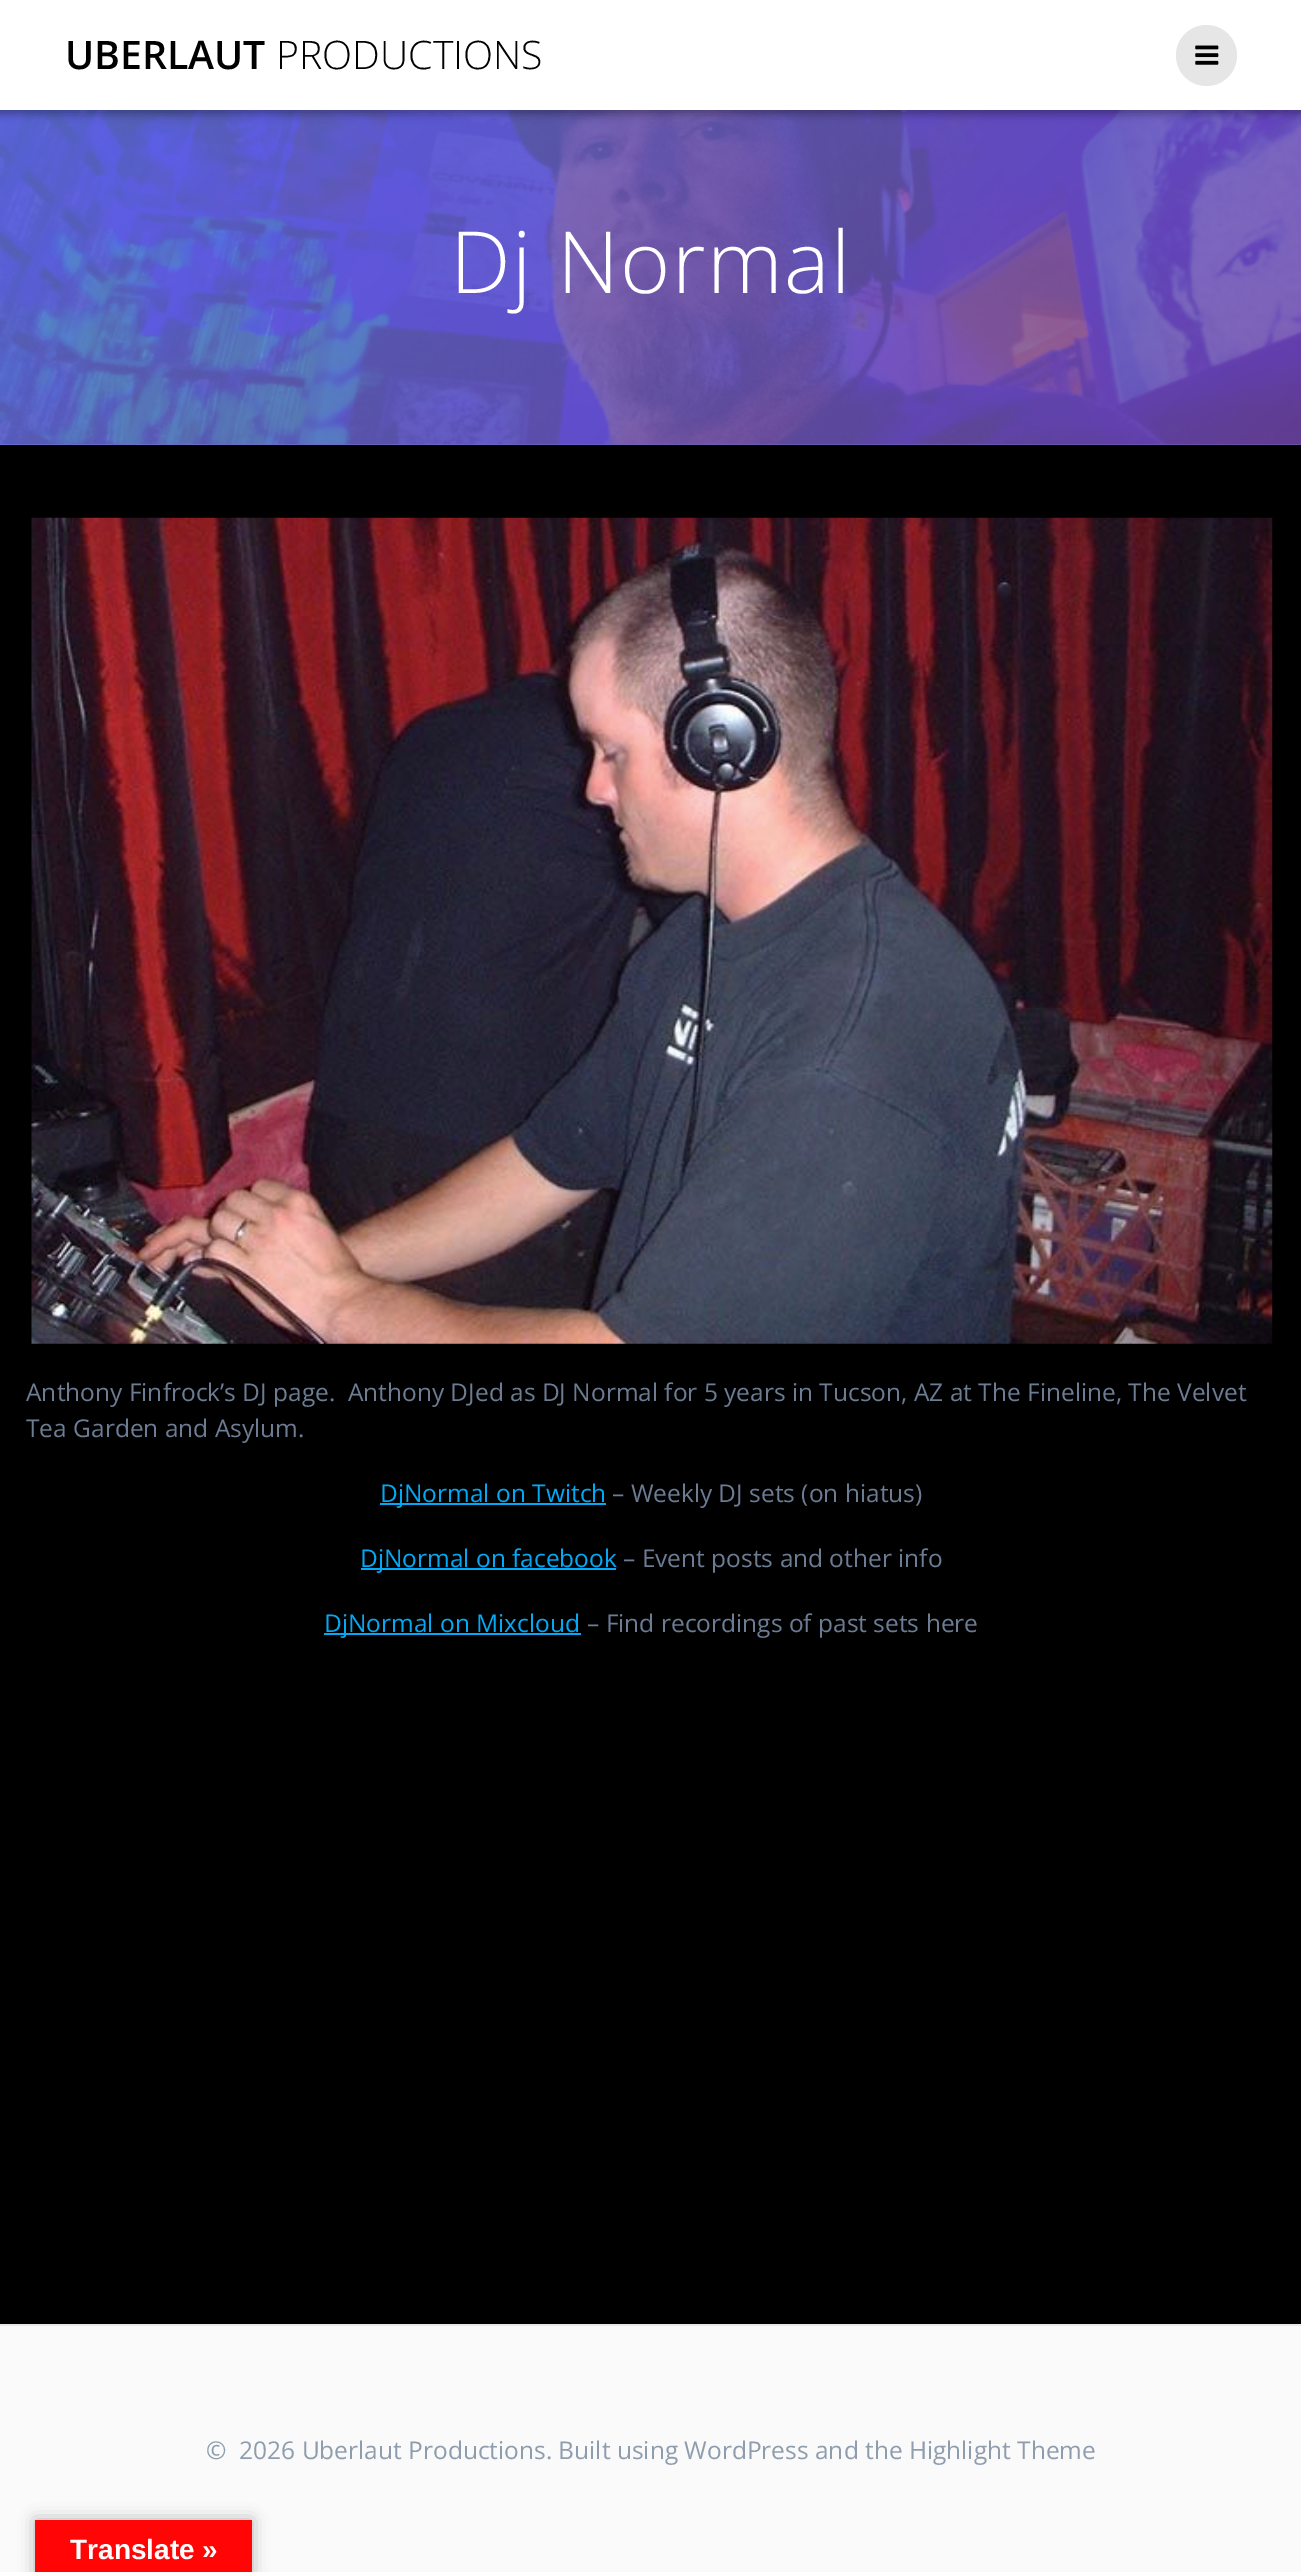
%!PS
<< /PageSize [1301 2572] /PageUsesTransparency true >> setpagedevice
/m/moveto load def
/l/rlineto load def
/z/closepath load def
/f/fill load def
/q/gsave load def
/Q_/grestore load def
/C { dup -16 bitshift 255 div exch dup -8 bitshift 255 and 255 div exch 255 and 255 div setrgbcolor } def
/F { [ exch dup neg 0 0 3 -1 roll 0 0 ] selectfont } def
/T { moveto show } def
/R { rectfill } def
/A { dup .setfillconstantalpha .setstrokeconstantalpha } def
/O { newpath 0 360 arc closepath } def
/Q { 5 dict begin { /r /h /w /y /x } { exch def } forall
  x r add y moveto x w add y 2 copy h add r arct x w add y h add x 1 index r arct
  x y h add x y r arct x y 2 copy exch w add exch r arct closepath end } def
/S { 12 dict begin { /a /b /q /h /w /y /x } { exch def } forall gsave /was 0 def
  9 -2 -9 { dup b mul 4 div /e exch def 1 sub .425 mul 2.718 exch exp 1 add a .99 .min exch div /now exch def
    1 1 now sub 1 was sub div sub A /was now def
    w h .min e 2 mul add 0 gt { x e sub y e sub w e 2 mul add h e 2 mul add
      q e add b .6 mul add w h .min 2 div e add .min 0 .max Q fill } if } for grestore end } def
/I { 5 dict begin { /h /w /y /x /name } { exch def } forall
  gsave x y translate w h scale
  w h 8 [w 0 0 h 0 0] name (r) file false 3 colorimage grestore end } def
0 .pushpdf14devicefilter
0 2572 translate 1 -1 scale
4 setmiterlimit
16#000000 C
0 0 1301 2572 R
16#6A73DA C
0 444 1301 1 R
(2.rgb) 0 110 1301 335 I
0.8 A
q 0 110 m 1301 0 l 0 335 l -1301 0 l z clip newpath
<< /ShadingType 2 /ColorSpace /DeviceRGB /Coords [214 -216 1088 658] /Extend [true true] /Function << /FunctionType 2 /Domain [0 1] /C0 [.4 .494 .918] /C1 [.463 .294 .635] /N 1 >> >> shfill Q_
1 A
16#000000 C
-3 -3 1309 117 0 4.5 .33 S
16#FFFFFF C
0 0 1301 110 R
/OpenSans-SemiBold 39.25 F
16#000000 C
(UBERLAUT) 65 69 T
/OpenSans-Light 39.25 F
(PRODUCTIONS) 276 69 T
16#E6E6E6 C
1206.5 55.5 30.5 O f
(1.rgb) 1195 45 24 20 I
/OpenSans-Light 85.75 F
16#FFFFFF C
450 293 m 1.5 0 (Dj Normal) ashow
(3.rgb) 31 517 1242 827 I
/OpenSans-Regular 24.5 F
16#6B7C93 C
(Anthony Finfrock’s DJ page.  Anthony DJed as DJ Normal for 5 years in Tucson, AZ at The Fineline, The Velvet) 26 1401 T
(Tea Garden and Asylum.) 26 1437 T
16#03A9F4 C
380 1503 226 2 R
(DjNormal on Twitch) 380 1502 T
16#6B7C93 C
(– Weekly DJ sets \(on hiatus\)) 612 1502 T
16#03A9F4 C
361 1568 255 2 R
(DjNormal on facebook) 360 1567 T
16#6B7C93 C
(– Event posts and other info) 623 1567 T
16#03A9F4 C
324 1633 257 2 R
(DjNormal on Mixcloud) 324 1632 T
16#6B7C93 C
(– Find recordings of past sets here) 587 1632 T
16#FAFAFA C
0 2326 1301 246 R
16#E8E8E8 C
0 2324 1301 2 R
16#8E9DAE C
(©  2026 Uberlaut Productions. Built using WordPress and the Highlight Theme) 206 2459 T
16#000000 C
35 2520 217 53 0 8 .3 S
16#FF0505 C
35 2520 217 52 R
/LiberationSans-Bold 28 F
16#FFFFFF C
(Translate ») 70 2559 T
.poppdf14devicefilter showpage
